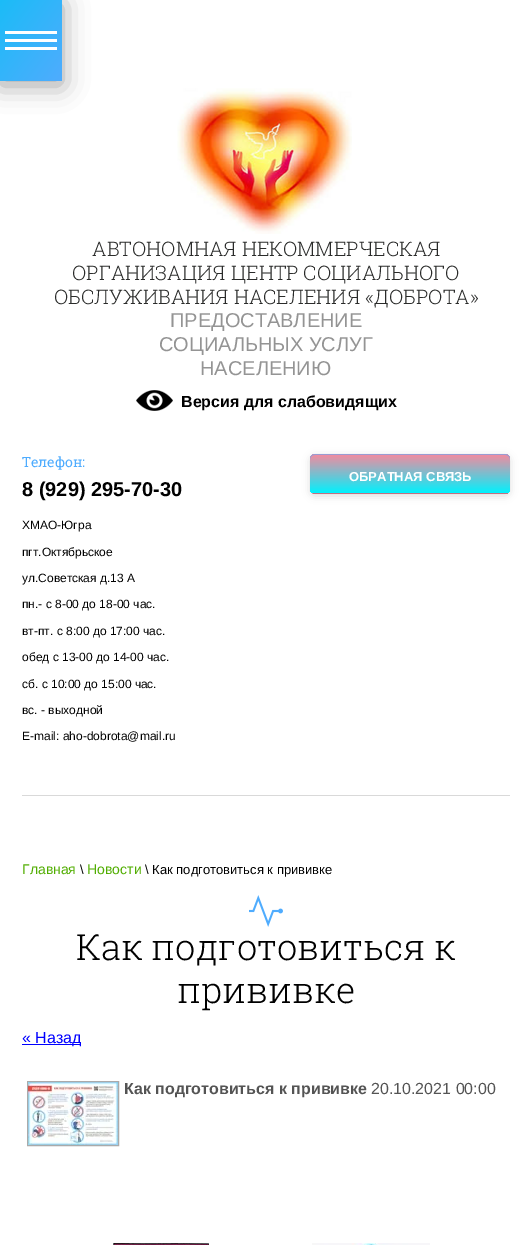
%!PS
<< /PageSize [532 1245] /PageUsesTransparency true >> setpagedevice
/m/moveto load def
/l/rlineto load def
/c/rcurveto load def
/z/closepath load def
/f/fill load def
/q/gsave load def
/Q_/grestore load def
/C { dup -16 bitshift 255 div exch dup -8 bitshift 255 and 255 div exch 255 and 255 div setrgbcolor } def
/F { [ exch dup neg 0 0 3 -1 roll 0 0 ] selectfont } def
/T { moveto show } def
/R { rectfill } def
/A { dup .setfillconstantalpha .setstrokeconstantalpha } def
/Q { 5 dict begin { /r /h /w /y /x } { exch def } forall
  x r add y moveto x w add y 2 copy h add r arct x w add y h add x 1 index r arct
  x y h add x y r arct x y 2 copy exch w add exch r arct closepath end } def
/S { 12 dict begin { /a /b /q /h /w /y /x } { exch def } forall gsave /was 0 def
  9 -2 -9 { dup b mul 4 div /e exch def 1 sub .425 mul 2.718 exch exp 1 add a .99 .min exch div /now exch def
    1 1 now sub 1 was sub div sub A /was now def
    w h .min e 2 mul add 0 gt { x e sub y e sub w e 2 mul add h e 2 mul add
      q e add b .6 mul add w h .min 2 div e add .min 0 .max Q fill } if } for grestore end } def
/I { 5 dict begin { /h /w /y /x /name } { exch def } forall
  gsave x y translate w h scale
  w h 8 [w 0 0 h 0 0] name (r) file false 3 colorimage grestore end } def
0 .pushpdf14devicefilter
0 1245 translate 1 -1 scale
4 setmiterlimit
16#FFFFFF C
0 0 532 1245 R
16#000000 C
0 4 62 81 0 13 .38 S
q 0 0 m 62 0 l 0 81 l -62 0 l z clip newpath
<< /ShadingType 2 /ColorSpace /DeviceRGB /Coords [-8 11 70 70] /Extend [true true] /Function << /FunctionType 2 /Domain [0 1] /C0 [.106 .737 .969] /C1 [.31 .675 .996] /N 1 >> >> shfill Q_
16#FFFFFF C
5 31 52 3 R
5 39 52 3 R
5 47 52 3 R
(1.rgb) 177 88 175 146 I
/RobotoSlab-Light 20 F
16#2A2B2A C
(АВТОНОМНАЯ НЕКОММЕРЧЕСКАЯ) 92 256 T
(ОРГАНИЗАЦИЯ ЦЕНТР СОЦИАЛЬНОГО) 72 280 T
(ОБСЛУЖИВАНИЯ НАСЕЛЕНИЯ «ДОБРОТА») 54 304 T
/Arimo-Regular 20 F
16#949494 C
(ПРЕДОСТАВЛЕНИЕ) 170 327 T
(СОЦИАЛЬНЫХ УСЛУГ) 159 351 T
(НАСЕЛЕНИЮ) 200 375 T
(2.rgb) 136 390 37 21 I
/LiberationSans-Bold 16 F
16#000000 C
(Версия для слабовидящих) 181 407 T
/RobotoSlab-Regular 14 F
16#4FACFE C
(Телефон:) 22 467 T
/Arimo-Bold 20 F
16#000000 C
(8 \(929\) 295-70-30) 22 496 T
/Arimo-Regular 12 F
(ХМАО-Югра) 22 529 T
(пгт.Октябрьское) 22 556 T
(ул.Советская д.13 А) 22 582 T
(пн.- с 8-00 до 18-00 час.) 22 608 T
(вт-пт. с 8:00 до 17:00 час.) 22 635 T
(обед с 13-00 до 14-00 час.) 22 661 T
(сб. с 10:00 до 15:00 час.) 22 688 T
(вс. - выходной) 22 714 T
(E-mail: aho-dobrota@mail.ru) 22 740 T
310 456 200 40 5 4 .14 S
16#00F2FE C
310 454 200 40 5 Q f
q
310 454 200 40 5 Q clip newpath
q 315 454 m 190 0 l 3 0 5 2 5 5 c 0 34 l -200 0 l 0 -34 l 0 -3 2 -5 5 -5 c z clip newpath
<< /ShadingType 2 /ColorSpace /DeviceRGB /Coords [410 454 410 532] /Extend [true true] /Function << /FunctionType 3 /Domain [0 1] /Functions [<< /FunctionType 2 /Domain [0 1] /C0 [.969 .537 .62] /C1 [0 .949 .996] /N 1 >> << /FunctionType 2 /Domain [0 1] /C0 [.969 .537 .62] /C1 [0 .949 .996] /N 1 >>] /Bounds [.5] /Encode [0 1 0 1] >> >> shfill Q_
q 310 493 m 200 0 l 0 1 l -200 0 l z clip newpath
<< /ShadingType 2 /ColorSpace /DeviceRGB /Coords [410 493 410 571] /Extend [true true] /Function << /FunctionType 3 /Domain [0 1] /Functions [<< /FunctionType 2 /Domain [0 1] /C0 [.969 .537 .62] /C1 [0 .949 .996] /N 1 >> << /FunctionType 2 /Domain [0 1] /C0 [.969 .537 .62] /C1 [0 .949 .996] /N 1 >>] /Bounds [.5] /Encode [0 1 0 1] >> >> shfill Q_
Q_
0.54 A
16#4FACFE C
315 455 m 190 0 l 3 0 5 2 5 5 c 0 -1 l 0 -3 -2 -5 -5 -5 c -190 0 l -3 0 -5 2 -5 5 c 0 1 l 0 -3 2 -5 5 -5 c z f
0.2 A
16#000000 C
313 493 195 1 R
/Arimo-Bold 13 F
1 A
16#FFFFFF C
(ОБРАТНАЯ СВЯЗЬ) 349 481 T
16#D9D9D9 C
22 795 488 1 R
/Arimo-Regular 14 F
16#50AD00 C
(Главная) 22 874 T
/Arimo-Regular 13 F
16#000000 C
(\\) 80 874 T
/Arimo-Regular 14 F
16#50AD00 C
(Новости) 87 874 T
/Arimo-Regular 13 F
16#000000 C
(\\ Как подготовиться к прививке) 145 874 T
(3.rgb) 249 895 34 32 I
/RobotoSlab-Light 36 F
(Как подготовиться к) 76 960 T
(прививке) 177 1003 T
16#0000FF C
22 1044 59 1 R
/Arimo-Regular 16 F
(« Назад) 22 1043 T
16#AAAAAA C
27.5 1081.5 91 64 rectstroke
(4.rgb) 28 1082 90 63 I
/Arimo-Bold 16 F
16#545454 C
(Как подготовиться к прививке) 124 1094 T
/Arimo-Regular 16 F
(20.10.2021 00:00) 371 1094 T
(5.rgb) 113 1243 96 2 I
(6.rgb) 312 1243 118 2 I
.poppdf14devicefilter showpage
